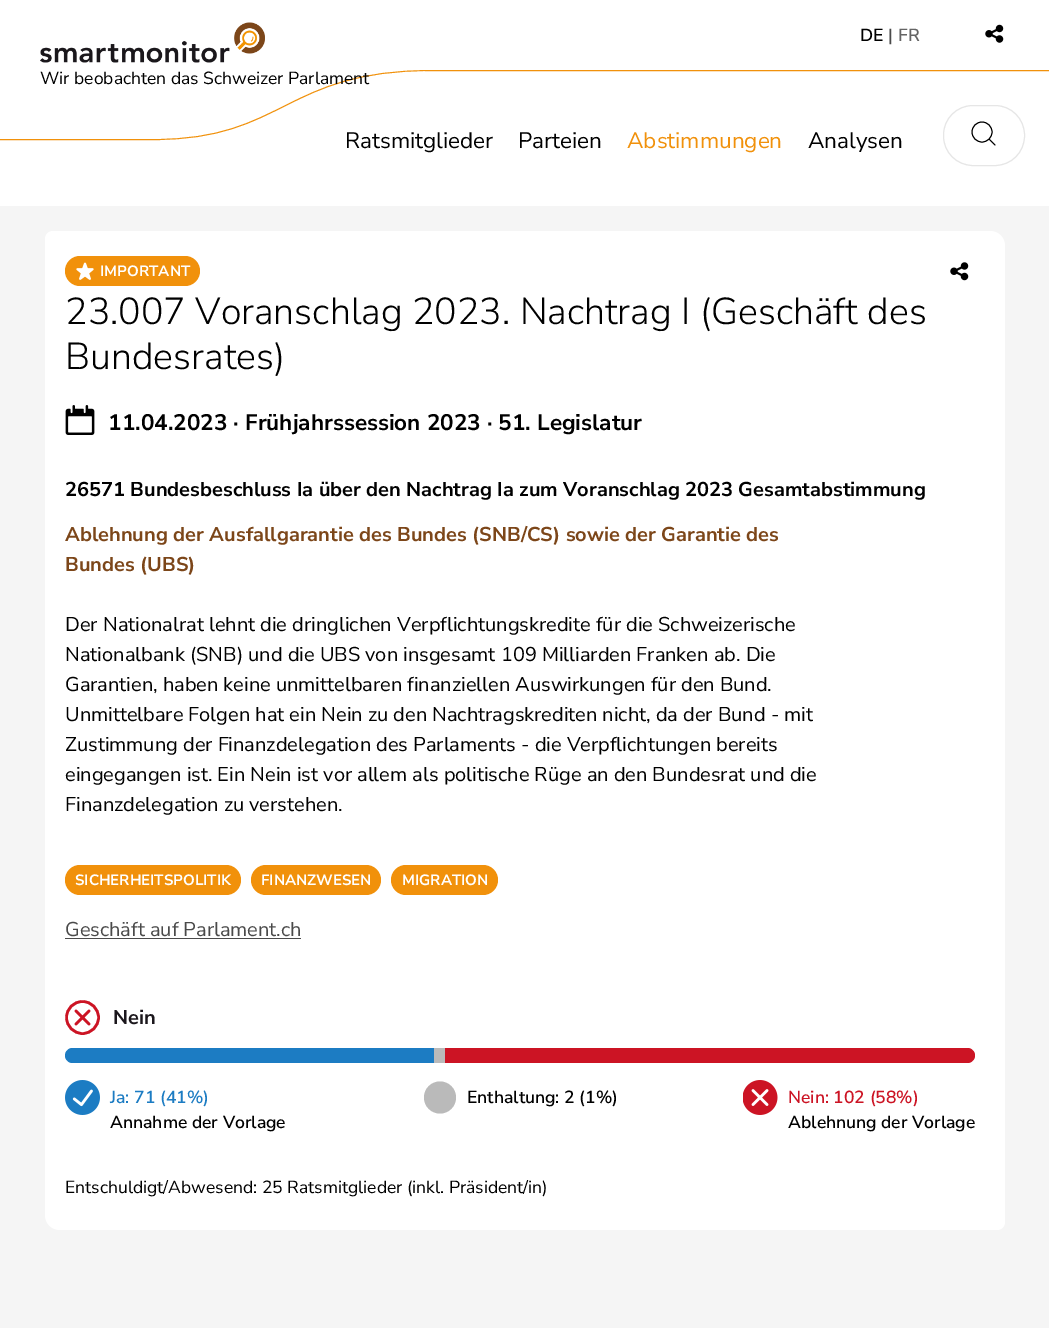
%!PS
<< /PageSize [1049 1328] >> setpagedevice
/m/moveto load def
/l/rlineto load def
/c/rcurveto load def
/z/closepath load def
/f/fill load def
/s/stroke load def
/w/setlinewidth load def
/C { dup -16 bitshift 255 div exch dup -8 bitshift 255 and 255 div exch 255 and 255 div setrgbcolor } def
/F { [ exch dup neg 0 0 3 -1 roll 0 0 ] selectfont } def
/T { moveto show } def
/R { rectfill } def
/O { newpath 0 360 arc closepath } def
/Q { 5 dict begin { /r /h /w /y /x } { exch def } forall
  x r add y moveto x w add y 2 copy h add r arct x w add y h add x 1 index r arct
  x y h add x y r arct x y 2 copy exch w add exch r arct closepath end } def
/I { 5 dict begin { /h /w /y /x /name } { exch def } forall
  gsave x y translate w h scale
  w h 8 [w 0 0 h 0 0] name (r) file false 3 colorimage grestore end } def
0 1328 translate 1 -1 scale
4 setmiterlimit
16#F5F5F5 C
0 0 1049 1328 R
16#FFFFFF C
0 0 1049 206 R
/NunitoSans-SemiBold 17.5 F
16#000000 C
(DE) 860 41 T
16#4A4A4A C
(|) 888 41 T
16#646464 C
(FR) 898 41 T
(1.rgb) 985 24 19 19 I
16#E6E6E6 C
943.5 105.5 81 60 29.5 Q s
16#000000 C
982 132 10 O s
1 setlinecap
1 setlinejoin
995 145 m -5.5 -5.5 l s
16#F1910B C
.9 w
0 setlinecap
0 setlinejoin
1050 70.5 m -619 0 l -146.5 0 -146.5 69 -276.5 69 c -154.5 0 l s
(2.rgb) 40 22 225 41 I
/NunitoSans-Regular 17.5 F
16#000000 C
(Wir beobachten das Schweizer Parlament) 40 84 T
/NunitoSans-Regular 22.5 F
(Ratsmitglieder) 345 148 T
(Parteien) 518 148 T
16#F1910B C
(Abstimmungen) 627 148 T
16#000000 C
(Analysen) 808 148 T
16#FFFFFF C
53 231 m 937 0 l 8.5 0 15 6.5 15 15 c 0 976 l 0 4.5 -3.5 8 -8 8 c -937 0 l -8.5 0 -15 -6.5 -15 -15 c 0 -976 l 0 -4.5 3.5 -8 8 -8 c z f
16#F1910B C
65 256 135 30 15 Q f
(3.rgb) 76 262 18 18 I
/NunitoSans-Bold 15 F
16#FFFFFF C
(IMPORTANT) 100 276 T
(4.rgb) 950 262 19 19 I
/NunitoSans-Light 37.5 F
16#000000 C
(23.007 Voranschlag 2023. Nachtrag I \(Geschäft des) 65 324 T
(Bundesrates\)) 65 369 T
(5.rgb) 65 405 30 30 I
/NunitoSans-Bold 22.5 F
(11.04.2023 · Frühjahrssession 2023 · 51. Legislatur) 108 430 T
/NunitoSans-Bold 20 F
(26571 Bundesbeschluss Ia über den Nachtrag Ia zum Voranschlag 2023 Gesamtabstimmung) 65 496 T
16#7C4619 C
(Ablehnung der Ausfallgarantie des Bundes \(SNB/CS\) sowie der Garantie des) 65 541 T
(Bundes \(UBS\)) 65 571 T
/NunitoSans-Regular 20 F
16#000000 C
(Der Nationalrat lehnt die dringlichen Verpflichtungskredite für die Schweizerische) 65 631 T
(Nationalbank \(SNB\) und die UBS von insgesamt 109 Milliarden Franken ab. Die) 65 661 T
(Garantien, haben keine unmittelbaren finanziellen Auswirkungen für den Bund.) 65 691 T
(Unmittelbare Folgen hat ein Nein zu den Nachtragskrediten nicht, da der Bund - mit) 65 721 T
(Zustimmung der Finanzdelegation des Parlaments - die Verpflichtungen bereits) 65 751 T
(eingegangen ist. Ein Nein ist vor allem als politische Rüge an den Bundesrat und die) 65 781 T
(Finanzdelegation zu verstehen.) 65 811 T
16#F1910B C
65 865 176 30 15 Q f
/NunitoSans-Bold 15 F
16#FFFFFF C
(SICHERHEITSPOLITIK) 75 885 T
16#F1910B C
251 865 130 30 15 Q f
16#FFFFFF C
(FINANZWESEN) 261 885 T
16#F1910B C
391 865 107 30 15 Q f
16#FFFFFF C
(MIGRATION) 402 885 T
/NunitoSans-Regular 20 F
16#4A4A4A C
(Geschäft auf Parlament.ch) 65 936 T
65 938 236 1 R
16#CC1424 C
2.6 w
82.5 1017.5 16 O s
1 setlinecap
1 setlinejoin
89 1011 m -13 13 l 89 1024 m -13 -13 l s
/NunitoSans-Bold 20 F
16#1B171C C
(Nein) 113 1024 T
16#1C7CC3 C
72.5 1048 m 361.5 0 l 0 15 l -361.5 0 l -4 0 -7.5 -3.5 -7.5 -7.5 c 0 -4 3.5 -7.5 7.5 -7.5 c z f
16#BABABA C
434 1048 11 15 R
16#CC1424 C
445 1048 m 522.5 0 l 4 0 7.5 3.5 7.5 7.5 c 0 4 -3.5 7.5 -7.5 7.5 c -522.5 0 l z f
(6.rgb) 65 1080 35 35 I
/NunitoSans-SemiBold 17.5 F
16#1C7CC3 C
(Ja: 71 \(41%\)) 110 1103 T
16#000000 C
(Annahme der Vorlage) 110 1128 T
16#BABABA C
440 1097.5 16 O f
16#000000 C
(Enthaltung: 2 \(1%\)) 467 1103 T
(7.rgb) 743 1080 35 35 I
16#CC1424 C
(Nein: 102 \(58%\)) 788 1103 T
16#000000 C
(Ablehnung der Vorlage) 788 1128 T
/NunitoSans-Regular 17.5 F
(Entschuldigt/Abwesend: 25 Ratsmitglieder \(inkl. Präsident/in\)) 65 1193 T
showpage
